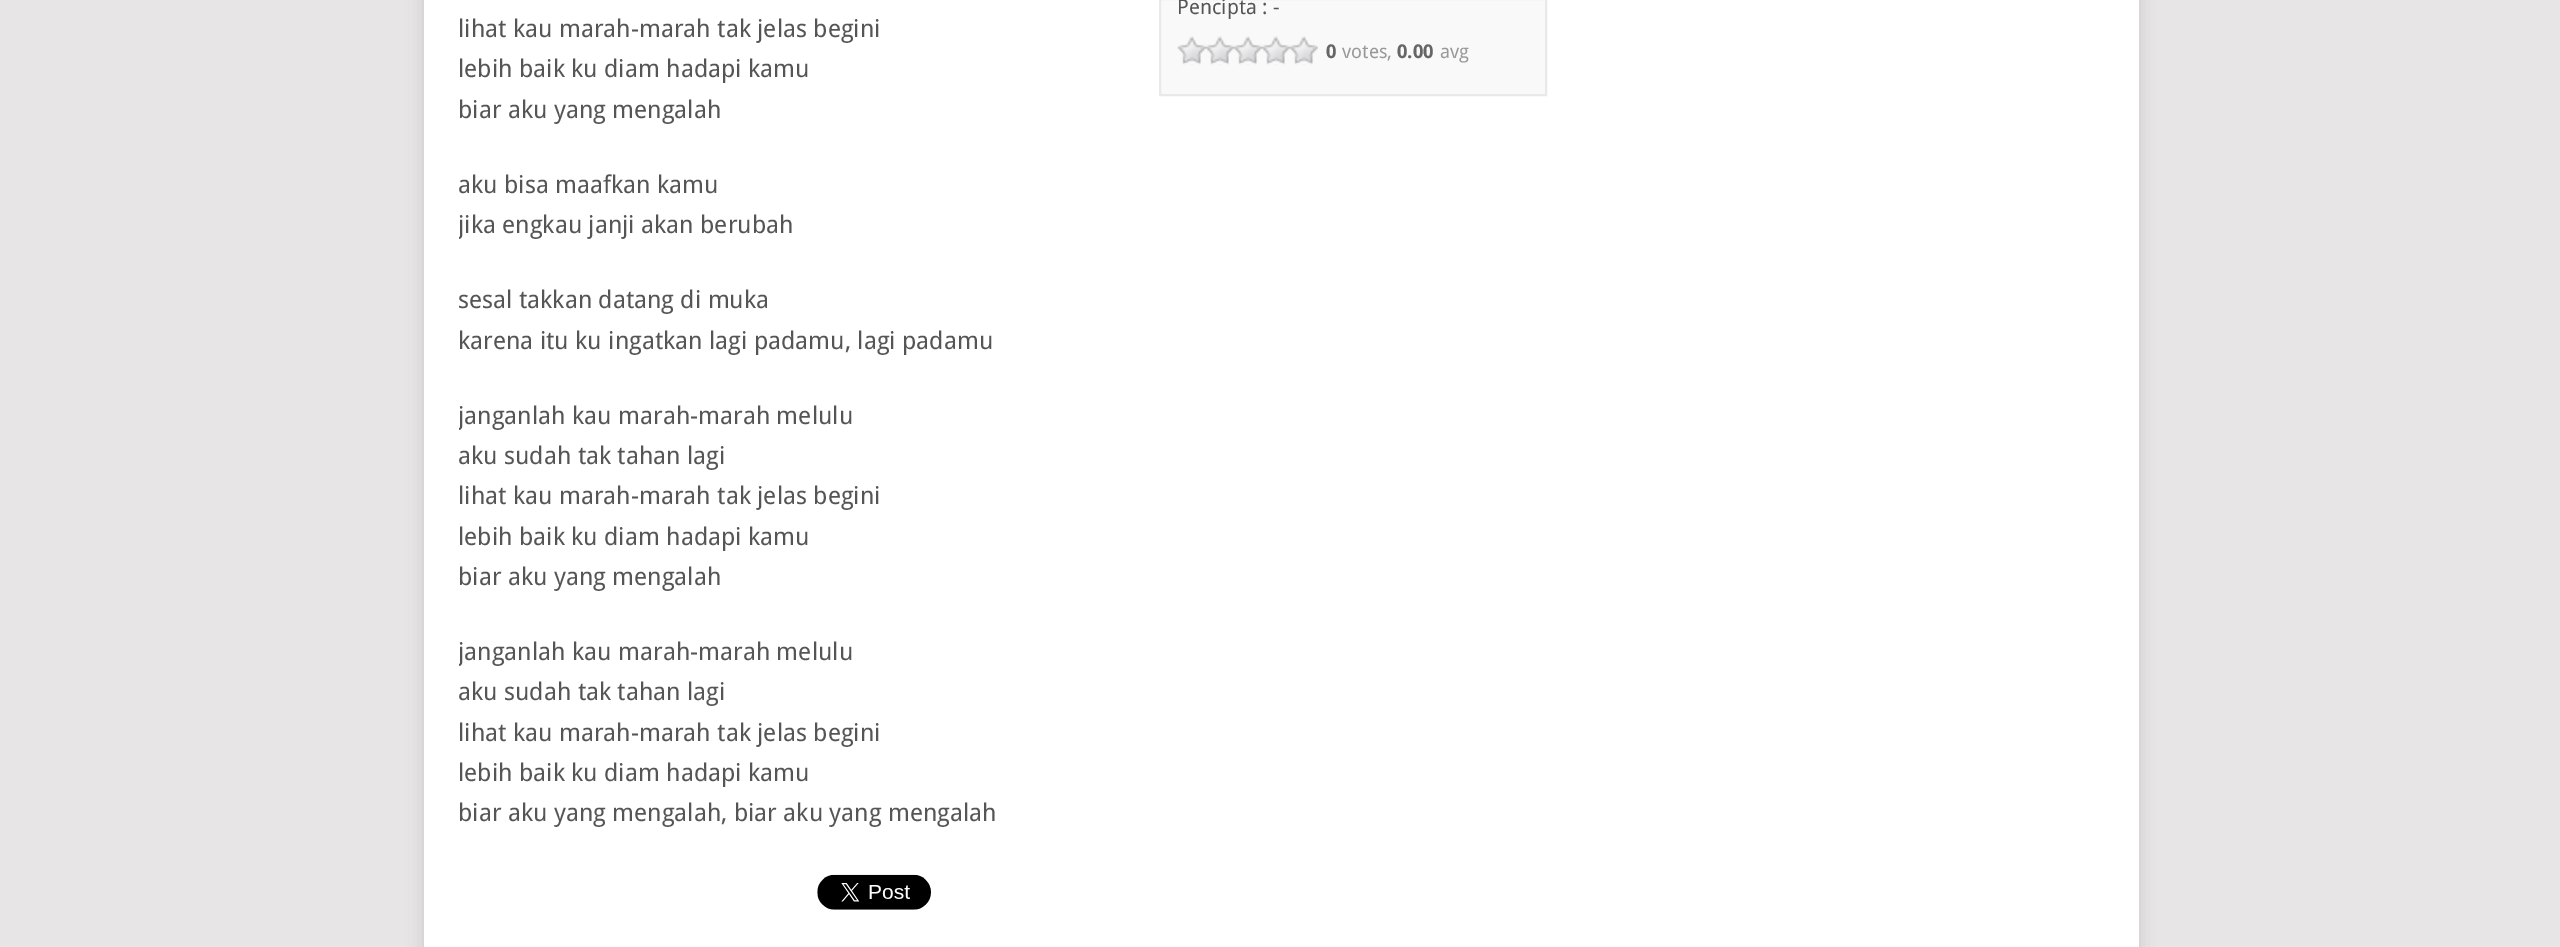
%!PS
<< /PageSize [2560 947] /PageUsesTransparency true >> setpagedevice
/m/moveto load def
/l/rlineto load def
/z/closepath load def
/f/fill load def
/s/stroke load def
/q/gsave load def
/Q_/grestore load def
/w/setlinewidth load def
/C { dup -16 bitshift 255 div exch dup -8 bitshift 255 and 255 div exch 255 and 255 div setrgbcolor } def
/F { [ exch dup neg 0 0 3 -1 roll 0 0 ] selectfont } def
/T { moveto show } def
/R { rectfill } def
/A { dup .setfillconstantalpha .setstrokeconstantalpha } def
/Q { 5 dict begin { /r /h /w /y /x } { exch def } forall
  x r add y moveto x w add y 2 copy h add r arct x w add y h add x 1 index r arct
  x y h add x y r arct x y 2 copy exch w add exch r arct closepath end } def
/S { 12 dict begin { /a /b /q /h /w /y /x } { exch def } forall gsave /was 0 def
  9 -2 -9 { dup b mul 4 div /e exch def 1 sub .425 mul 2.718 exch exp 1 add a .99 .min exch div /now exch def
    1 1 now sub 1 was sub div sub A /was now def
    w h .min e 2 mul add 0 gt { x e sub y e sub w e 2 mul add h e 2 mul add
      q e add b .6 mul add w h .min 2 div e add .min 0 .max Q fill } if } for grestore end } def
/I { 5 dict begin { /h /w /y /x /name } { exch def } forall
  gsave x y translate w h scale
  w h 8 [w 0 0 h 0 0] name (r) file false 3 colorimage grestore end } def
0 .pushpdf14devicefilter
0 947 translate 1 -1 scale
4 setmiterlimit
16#E7E5E6 C
0 0 2560 947 R
16#323232 C
424 -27 1715 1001 0 9 .17 S
16#FFFFFF C
424 0 1715 947 R
/DroidSans-Regular 24.5 F
16#555555 C
(lihat kau marah-marah tak jelas begini) 458 37 T
(lebih baik ku diam hadapi kamu) 458 77 T
(biar aku yang mengalah) 458 118 T
16#F9F9F9 C
1160 -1 m 386 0 l 0 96 l -386 0 l z q f Q_
16#E9E9E9 C
2 w
s
/DroidSans-Regular 20.5 F
16#555555 C
(Pencipta : -) 1177 14 T
(1.rgb) 1177 36 141 29 I
/DroidSans-Bold 19 F
16#666666 C
(0) 1326 58 T
/DroidSans-Regular 19 F
16#999999 C
(votes,) 1342 58 T
/DroidSans-Bold 19 F
16#666666 C
(0.00) 1397 58 T
/DroidSans-Regular 19 F
16#999999 C
(avg) 1440 58 T
q
459 0 1088 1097 rectclip
/DroidSans-Regular 24.5 F
16#555555 C
(aku bisa maafkan kamu) 458 193 T
(jika engkau janji akan berubah) 458 233 T
(sesal takkan datang di muka) 458 308 T
Q_
/DroidSans-Regular 24.5 F
16#555555 C
(karena itu ku ingatkan lagi padamu, lagi padamu) 458 349 T
q
459 0 1088 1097 rectclip
(janganlah kau marah-marah melulu) 458 424 T
(aku sudah tak tahan lagi) 458 464 T
Q_
(lihat kau marah-marah tak jelas begini) 458 504 T
(lebih baik ku diam hadapi kamu) 458 545 T
(biar aku yang mengalah) 458 585 T
q
459 0 1088 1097 rectclip
(janganlah kau marah-marah melulu) 458 660 T
(aku sudah tak tahan lagi) 458 700 T
Q_
(lihat kau marah-marah tak jelas begini) 458 741 T
(lebih baik ku diam hadapi kamu) 458 781 T
(biar aku yang mengalah, biar aku yang mengalah) 458 821 T
(2.rgb) 817 874 114 36 I
.poppdf14devicefilter showpage
